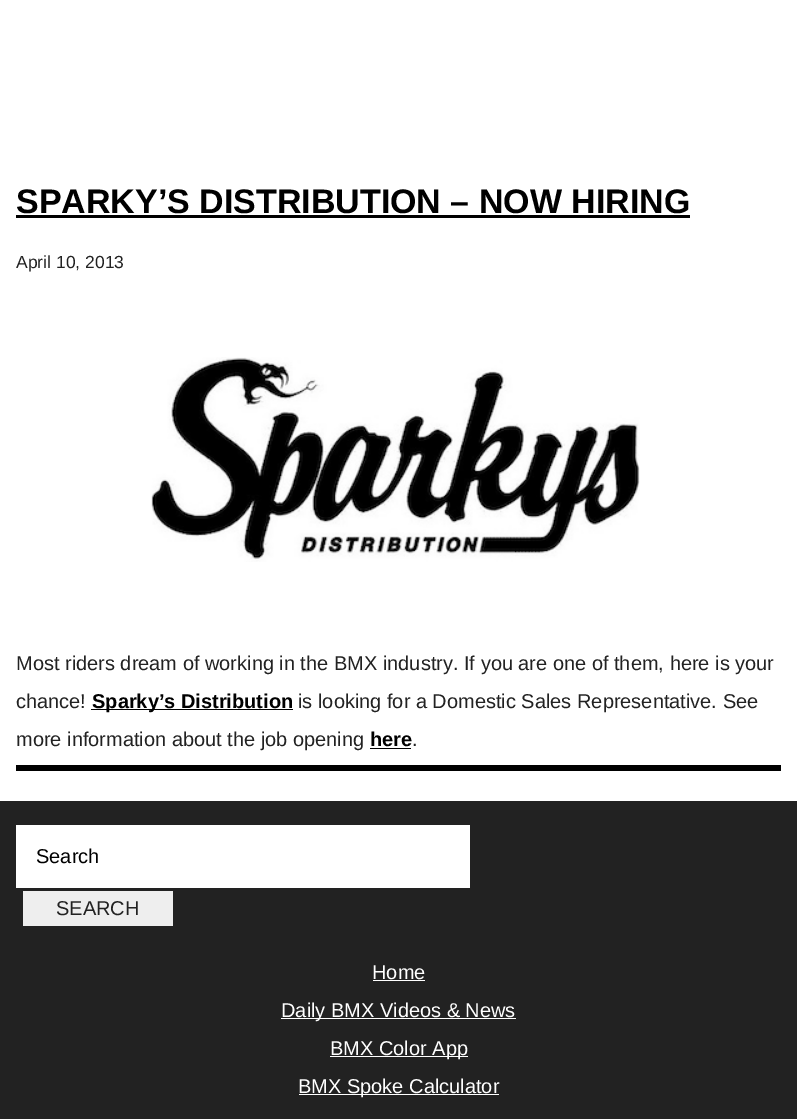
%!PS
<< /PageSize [797 1119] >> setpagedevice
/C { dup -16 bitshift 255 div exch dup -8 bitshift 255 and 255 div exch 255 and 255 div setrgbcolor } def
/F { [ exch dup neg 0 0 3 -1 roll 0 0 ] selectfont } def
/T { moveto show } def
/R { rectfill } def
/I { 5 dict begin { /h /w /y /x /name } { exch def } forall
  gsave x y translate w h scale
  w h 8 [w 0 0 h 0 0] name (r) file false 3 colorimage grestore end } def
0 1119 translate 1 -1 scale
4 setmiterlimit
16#FFFFFF C
0 0 797 1119 R
16#000000 C
16 765 765 6 R
/LiberationSans-Bold 34 F
(SPARKY’S DISTRIBUTION – NOW HIRING) 16 213 T
16 215 674 3 R
/LiberationSans-Regular 17.5 F
16#222222 C
(April 10, 2013) 16 268 T
(1.rgb) 151 357 489 205 I
/LiberationSans-Regular 20 F
(Most riders dream of working in the BMX industry. If you are one of them, here is your) 16 670 T
(chance!) 16 708 T
16#000000 C
91 709 202 1 R
/LiberationSans-Bold 20 F
(Sparky’s Distribution) 92 708 T
/LiberationSans-Regular 20 F
16#222222 C
(is looking for a Domestic Sales Representative. See) 298 708 T
(more information about the job opening) 16 746 T
/LiberationSans-Bold 20 F
16#000000 C
(here) 370 746 T
370 748 41 1 R
/LiberationSans-Regular 20 F
16#222222 C
(.) 412 746 T
0 801 797 318 R
16#FFFFFF C
16 825 454 63 R
16#000000 C
(Search) 36 863 T
16#EEEEEE C
23 891 150 35 R
16#222222 C
(SEARCH) 56 915 T
16#FFFFFF C
(Home) 372 979 T
373 980 52 1 R
281 1018 235 1 R
(Daily BMX Videos & News) 281 1017 T
330 1056 138 1 R
(BMX Color App) 330 1055 T
299 1094 200 1 R
(BMX Spoke Calculator) 298 1093 T
showpage
